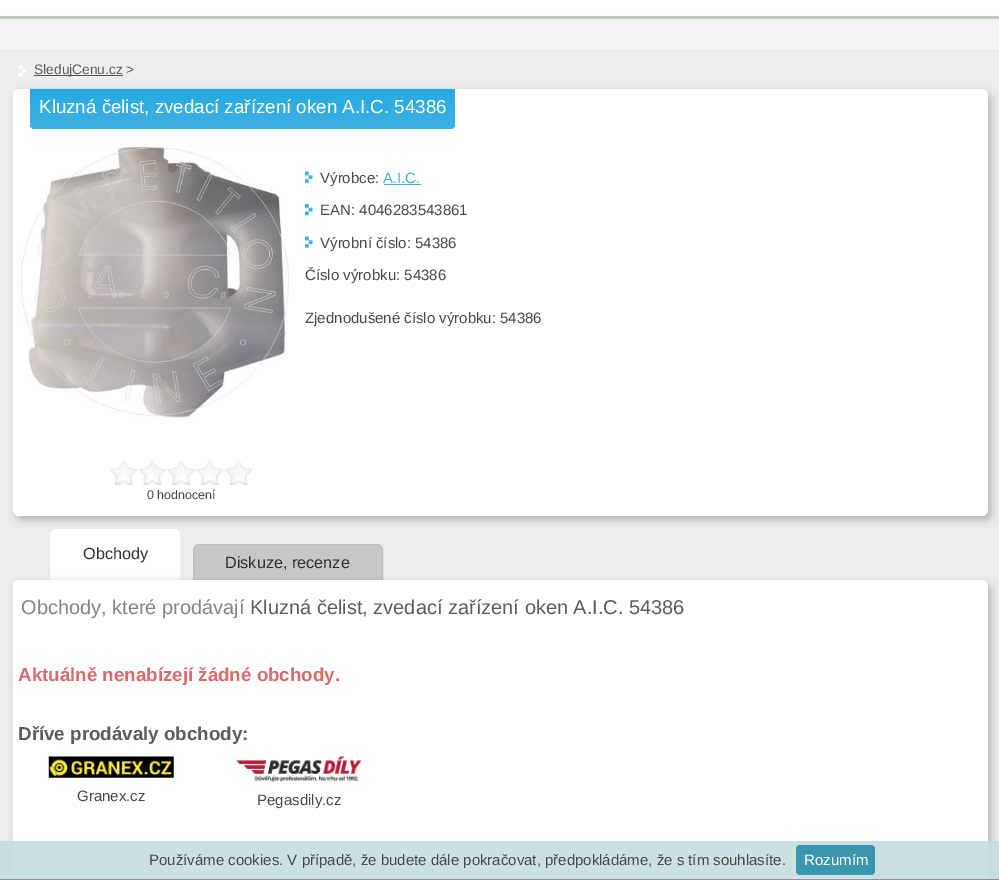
%!PS
<< /PageSize [999 880] /PageUsesTransparency true >> setpagedevice
/m/moveto load def
/l/rlineto load def
/c/rcurveto load def
/z/closepath load def
/f/fill load def
/s/stroke load def
/q/gsave load def
/Q_/grestore load def
/C { dup -16 bitshift 255 div exch dup -8 bitshift 255 and 255 div exch 255 and 255 div setrgbcolor } def
/F { [ exch dup neg 0 0 3 -1 roll 0 0 ] selectfont } def
/T { moveto show } def
/R { rectfill } def
/A { dup .setfillconstantalpha .setstrokeconstantalpha } def
/Q { 5 dict begin { /r /h /w /y /x } { exch def } forall
  x r add y moveto x w add y 2 copy h add r arct x w add y h add x 1 index r arct
  x y h add x y r arct x y 2 copy exch w add exch r arct closepath end } def
/S { 12 dict begin { /a /b /q /h /w /y /x } { exch def } forall gsave /was 0 def
  9 -2 -9 { dup b mul 4 div /e exch def 1 sub .425 mul 2.718 exch exp 1 add a .99 .min exch div /now exch def
    1 1 now sub 1 was sub div sub A /was now def
    w h .min e 2 mul add 0 gt { x e sub y e sub w e 2 mul add h e 2 mul add
      q e add b .6 mul add w h .min 2 div e add .min 0 .max Q fill } if } for grestore end } def
/I { 5 dict begin { /h /w /y /x /name } { exch def } forall
  gsave x y translate w h scale
  w h 8 [w 0 0 h 0 0] name (r) file false 3 colorimage grestore end } def
0 .pushpdf14devicefilter
0 880 translate 1 -1 scale
4 setmiterlimit
16#F3F3F3 C
0 0 999 880 R
16#FFFFFF C
0 0 999 16 R
16#BCCAB4 C
0 16 999 3 R
16#EDEDED C
0 51 999 829 R
16#EAE9EA C
0 50 999 1 R
(1.rgb) 18 65 9 12 I
16#575757 C
34 75 89 1 R
/LiberationSans-Regular 13.75 F
16#5C5C5C C
(SledujCenu.cz >) 34 74 T
16#B3B3B3 C
16 93 975 427 6 4.5 1 S
16#FFFFFF C
13 89 975 427 6 Q f
q 30 89 m 425 0 l 0 34 l 0 3.5 -2.5 6 -6 6 c -413 0 l -3.5 0 -6 -2.5 -6 -6 c z clip newpath
<< /ShadingType 2 /ColorSpace /DeviceRGB /Coords [243 89 243 129] /Extend [true true] /Function << /FunctionType 2 /Domain [0 1] /C0 [.137 .667 .894] /C1 [.255 .694 .882] /N 1 >> >> shfill Q_
16#C0E8E9 C
30 88 425 1 R
/LiberationSans-Regular 18.75 F
16#FFFFFF C
(Kluzná čelist, zvedací zařízení oken A.I.C. 54386) 39 113 T
(2.rgb) 305 171 8 12 I
/LiberationSans-Regular 15 F
16#494949 C
(Výrobce:) 320 183 T
16#41B1E1 C
(A.I.C.) 383 183 T
384 184 37 1 R
(3.rgb) 305 204 8 12 I
16#494949 C
(EAN: 4046283543861) 320 215 T
(2.rgb) 305 236 8 12 I
(Výrobní číslo: 54386) 320 248 T
(Číslo výrobku: 54386) 305 280 T
(Zjednodušené číslo výrobku: 54386) 305 323 T
(4.rgb) 18 144 271 275 I
(5.rgb) 110 460 143 25 I
/LiberationSans-Regular 12.5 F
(0 hodnocení) 147 499 T
16#FFFFFF C
56 529.5 m 118 0 l 3 0 5.5 2.5 5.5 5.5 c 0 44.5 l -129 0 l 0 -44.5 l 0 -3 2.5 -5.5 5.5 -5.5 c z q f Q_
s
/LiberationSans-Regular 16.25 F
16#303030 C
(Obchody) 83 559 T
16#C7C7C7 C
199 544.5 m 178 0 l 3 0 5.5 2.5 5.5 5.5 c 0 29.5 l -189 0 l 0 -29.5 l 0 -3 2.5 -5.5 5.5 -5.5 c z q f Q_
16#BDBDBD C
s
16#303030 C
(Diskuze, recenze) 225 568 T
16#B3B3B3 C
16 584 975 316 6 4.5 1 S
16#FFFFFF C
13 580 975 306 6 Q f
/LiberationSans-Regular 20 F
16#858585 C
(Obchody, které prodávají) 21 614 T
16#5C5C5C C
(Kluzná čelist, zvedací zařízení oken A.I.C. 54386) 250 614 T
/LiberationSans-Bold 18.75 F
16#DB6A6A C
(Aktuálně nenabízejí žádné obchody.) 18 681 T
16#5C5C5C C
(Dříve prodávaly obchody:) 18 740 T
(6.rgb) 48 756 126 22 I
/LiberationSans-Regular 15 F
16#494949 C
(Granex.cz) 77 801 T
(7.rgb) 236 756 126 26 I
(Pegasdily.cz) 257 805 T
0.9 A
16#C7DCE0 C
0 841 999 39 R
16#8A8A8A C
0 879 999 1 R
1 A
16#494949 C
(Používáme cookies. V případě, že budete dále pokračovat, předpokládáme, že s tím souhlasíte.) 149 865 T
16#3B97AD C
796 845 79 30 4 Q f
16#FFFFFF C
(Rozumím) 804 865 T
.poppdf14devicefilter showpage
